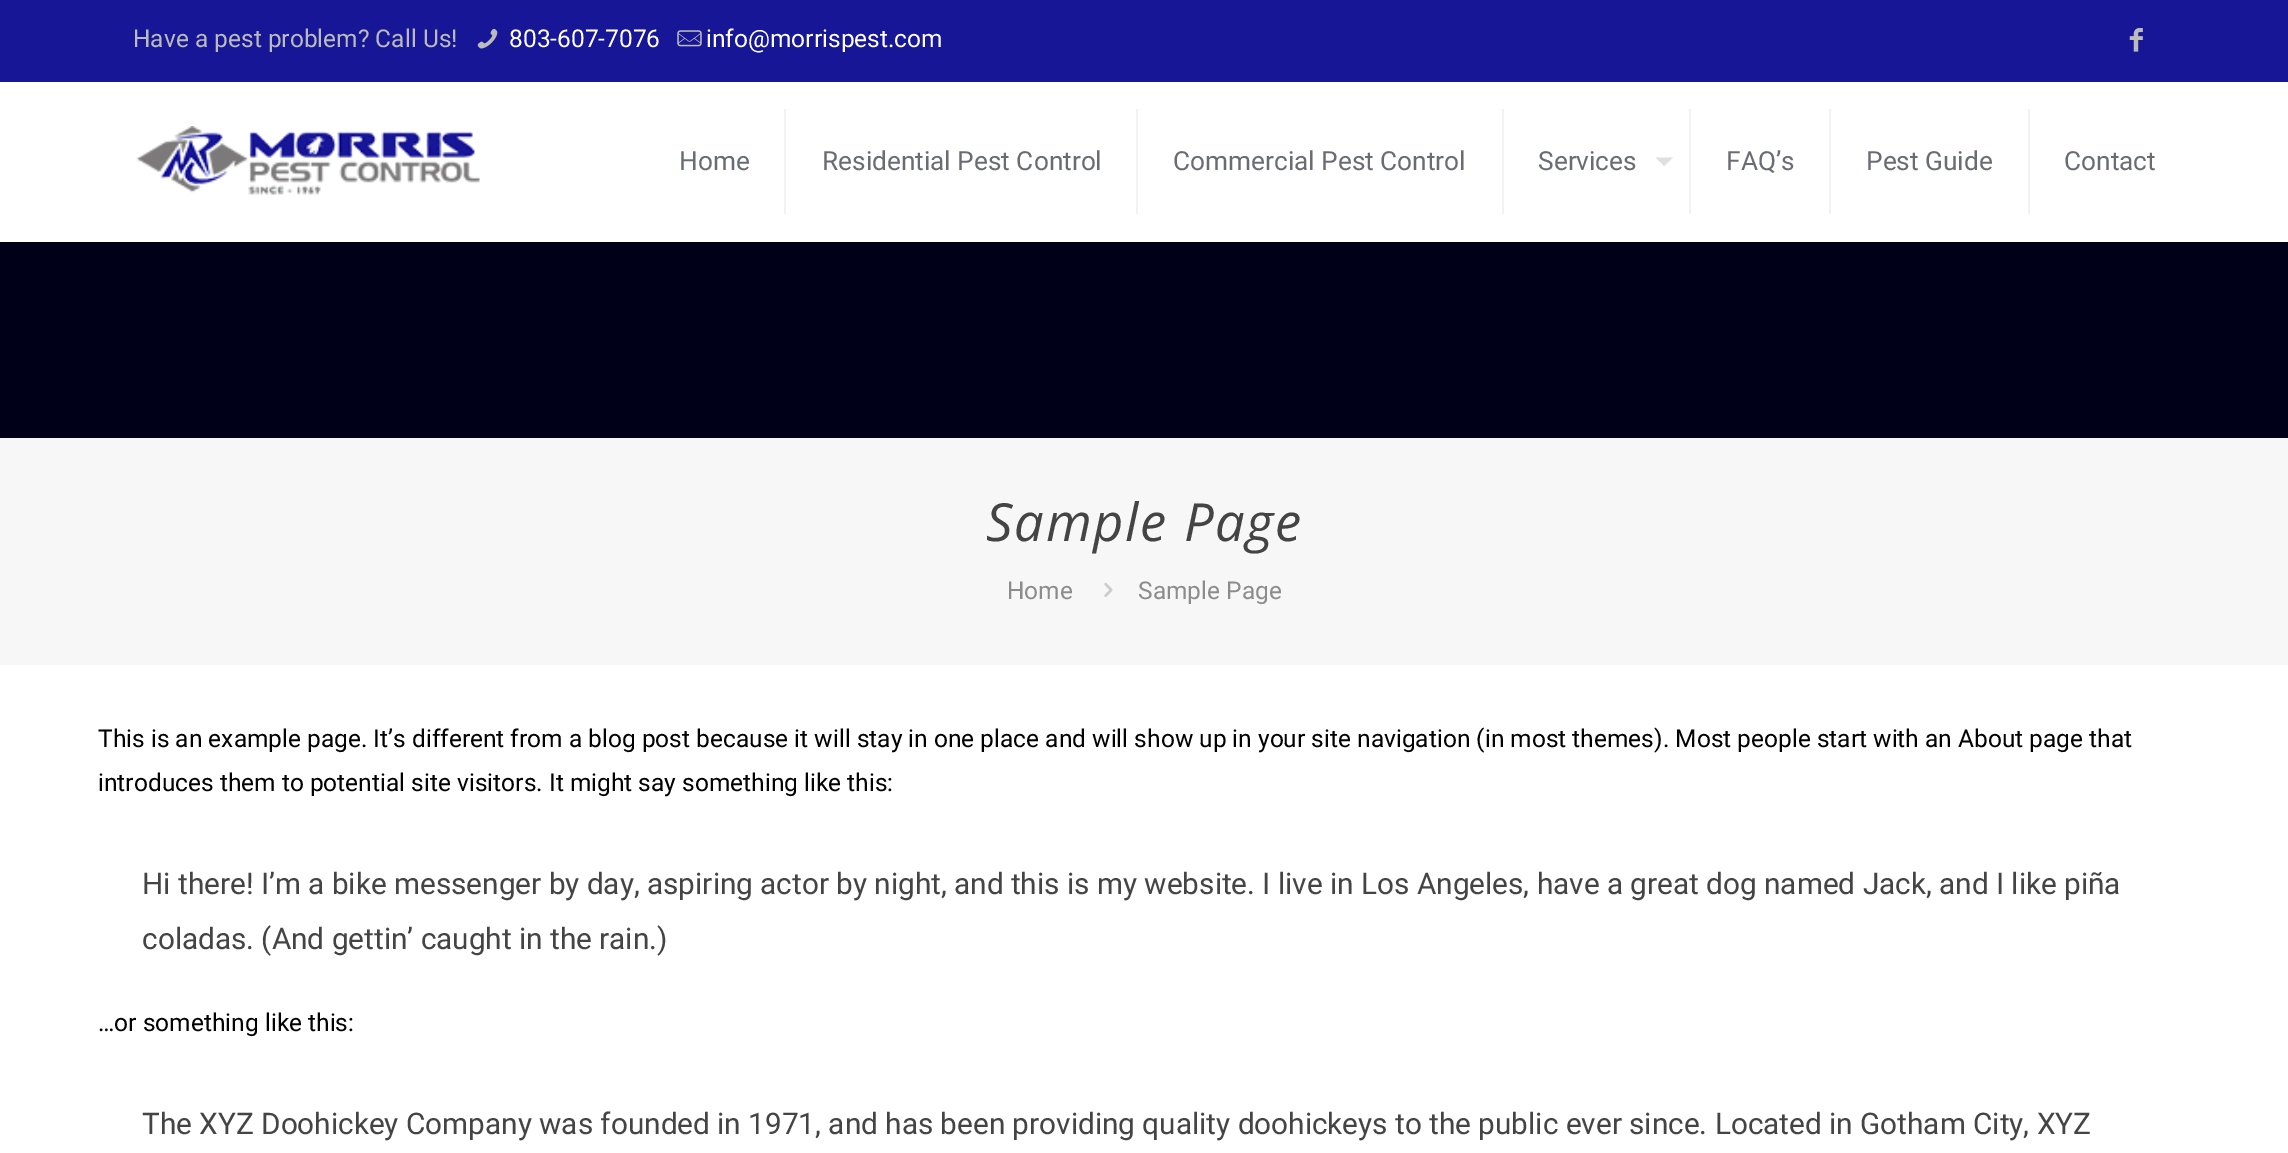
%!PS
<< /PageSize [2288 1153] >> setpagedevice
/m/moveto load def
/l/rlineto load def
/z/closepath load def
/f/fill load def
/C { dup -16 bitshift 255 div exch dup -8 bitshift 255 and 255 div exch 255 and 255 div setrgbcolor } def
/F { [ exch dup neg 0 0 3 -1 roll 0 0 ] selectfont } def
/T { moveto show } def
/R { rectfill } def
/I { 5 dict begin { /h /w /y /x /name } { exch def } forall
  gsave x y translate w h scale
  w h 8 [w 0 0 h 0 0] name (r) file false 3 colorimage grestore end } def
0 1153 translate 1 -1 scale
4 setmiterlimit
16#FFFFFF C
0 0 2288 1153 R
16#000119 C
0 242 2288 196 R
16#171696 C
0 0 2288 82 R
/Roboto-Regular 24.5 F
16#BBBBBB C
(Have a pest problem? Call Us!) 133 47 T
(1.rgb) 477 28 21 21 I
16#FFFFFF C
(803-607-7076) 509 47 T
(2.rgb) 677 30 25 17 I
(info@morrispest.com) 706 47 T
(3.rgb) 2129 28 14 24 I
(4.rgb) 136 126 344 69 I
16#F2F2F2 C
784 109 2 105 R
/Roboto-Regular 26.25 F
16#6A6C74 C
(Home) 679 170 T
16#F2F2F2 C
1136 109 2 105 R
16#6A6C74 C
(Residential Pest Control) 822 170 T
16#F2F2F2 C
1502 109 2 105 R
16#6A6C74 C
(Commercial Pest Control) 1173 170 T
16#F2F2F2 C
1689 109 2 105 R
16#6A6C74 C
(Services) 1538 170 T
16#E0E0E0 C
1655.5 157.5 m 17.5 0 l -9 8.5 l z f
16#F2F2F2 C
1829 109 2 105 R
16#6A6C74 C
(FAQ’s) 1726 170 T
16#F2F2F2 C
2028 109 2 105 R
16#6A6C74 C
(Pest Guide) 1866 170 T
(Contact) 2064 170 T
16#F7F7F7 C
0 438 2288 227 R
/OpenSans-Italic 52.5 F
16#444444 C
986 541 m 1.75 0 (Sample Page) ashow
/Roboto-Regular 24.5 F
16#8C8C8C C
(Home) 1007 599 T
(5.rgb) 1104 582 9 15 I
(Sample Page) 1138 599 T
16#000000 C
(This is an example page. It’s different from a blog post because it will stay in one place and will show up in your site navigation \(in most themes\). Most people start with an About page that) 98 747 T
(introduces them to potential site visitors. It might say something like this:) 98 791 T
/Roboto-Regular 29.75 F
16#444444 C
(Hi there! I’m a bike messenger by day, aspiring actor by night, and this is my website. I live in Los Angeles, have a great dog named Jack, and I like piña) 142 894 T
(coladas. \(And gettin’ caught in the rain.\)) 142 949 T
/Roboto-Regular 24.5 F
16#000000 C
(…or something like this:) 98 1031 T
/Roboto-Regular 29.75 F
16#444444 C
(The XYZ Doohickey Company was founded in 1971, and has been providing quality doohickeys to the public ever since. Located in Gotham City, XYZ) 142 1134 T
showpage
